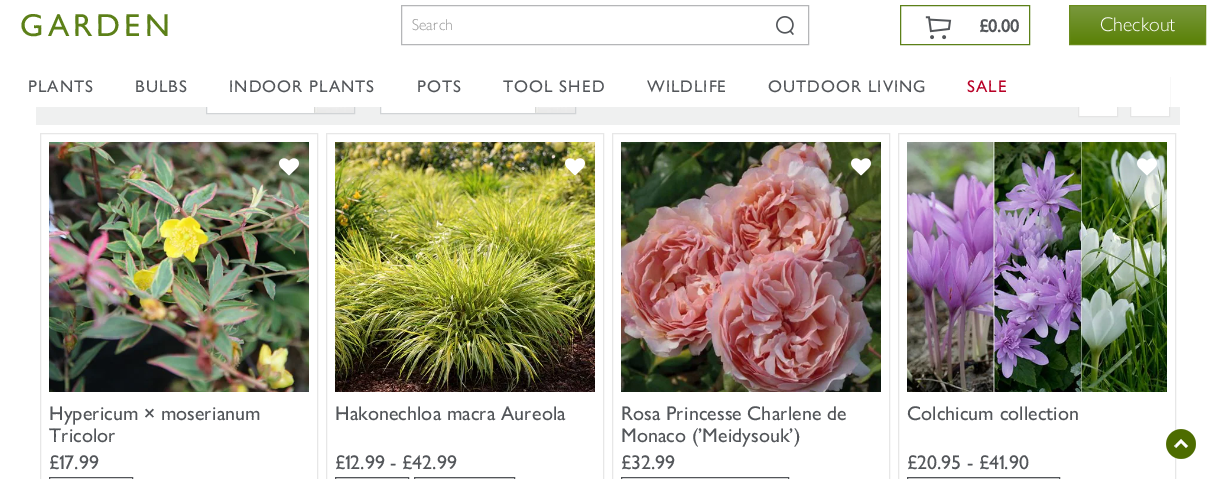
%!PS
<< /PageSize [1216 479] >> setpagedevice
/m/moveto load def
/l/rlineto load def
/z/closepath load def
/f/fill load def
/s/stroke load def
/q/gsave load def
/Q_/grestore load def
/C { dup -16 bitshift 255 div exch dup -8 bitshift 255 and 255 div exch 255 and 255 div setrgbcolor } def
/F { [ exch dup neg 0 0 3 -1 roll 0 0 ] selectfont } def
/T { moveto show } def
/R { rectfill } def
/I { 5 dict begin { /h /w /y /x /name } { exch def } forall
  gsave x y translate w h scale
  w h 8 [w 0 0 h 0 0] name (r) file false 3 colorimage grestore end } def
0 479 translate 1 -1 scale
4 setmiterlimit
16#FFFFFF C
0 0 1216 479 R
16#EFF0F0 C
36 107 1144 18 R
16#FFFFFF C
207 107 107 6 R
(3.rgb) 314 107 40 6 I
16#D1D4D6 C
206.5 80.5 148 33 rectstroke
16#FFFFFF C
381 107 154 6 R
(3.rgb) 535 107 40 6 I
16#D1D4D6 C
380.5 80.5 195 33 rectstroke
16#FFFFFF C
1079 107 38 9 R
16#E5E5E5 C
1078.5 77.5 39 39 rectstroke
16#FFFFFF C
1131 107 38 9 R
16#E5E5E5 C
1130.5 77.5 39 39 rectstroke
16#FFFFFF C
206 77 964 30 R
/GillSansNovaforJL-Medium 32 F
16#5C8018 C
20 36 m 4 0 (GARDEN) ashow
16#B5B6B8 C
401.5 5.5 407 39 rectstroke
/GillSansNovaforJL-Light 16 F
16#999999 C
(Search) 412 30 T
(1.rgb) 776 16 18 19 I
(2.rgb) 925 16 27 24 I
16#5C8018 C
900.5 5.5 129 39 rectstroke
/GillSansNovaforJL-Bold 18 F
16#53565A C
(£0.00) 979 32 T
q 1070 6 m 135 0 l 0 38 l -135 0 l z clip newpath
<< /ShadingType 2 /ColorSpace /DeviceRGB /Coords [1138 6 1138 44] /Extend [true true] /Function << /FunctionType 2 /Domain [0 1] /C0 [.475 .596 .239] /C1 [.353 .506 .024] /N 1 >> >> shfill Q_
16#6A8C1C C
1069.5 5.5 136 39 rectstroke
/GillSansNovaforJL-Light 20 F
16#FFFFFF C
(Checkout) 1100 31 T
/GillSansNovaforJL-Medium 17 F
16#53565A C
28 92 m 1 0 (PLANTS) ashow
135 92 m 1 0 (BULBS) ashow
229 92 m 1 0 (INDOOR PLANTS) ashow
417 92 m 1 0 (POTS) ashow
503 92 m 1 0 (TOOL SHED) ashow
647 92 m 1 0 (WILDLIFE) ashow
768 92 m 1 0 (OUTDOOR LIVING) ashow
16#B80026 C
967 92 m 1 0 (SALE) ashow
16#E7E7E7 C
40.5 133.5 277 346 rectstroke
(4.rgb) 49 142 260 250 I
(5.rgb) 279 158 20 18 I
/GillSansNovaforJL-Medium 20 F
16#53565A C
(Hypericum × moserianum) 49 420 T
(Tricolor) 49 442 T
(£17.99) 49 469 T
49.5 477.5 83 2 rectstroke
16#E7E7E7 C
326.5 133.5 277 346 rectstroke
(6.rgb) 335 142 260 250 I
(7.rgb) 565 158 20 18 I
16#53565A C
(Hakonechloa macra Aureola) 335 420 T
(£12.99 - £42.99) 335 469 T
16#ECECEC C
335.5 477.5 m 73 0 l 0 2 l -73 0 l z q f Q_
16#53565A C
s
16#ECECEC C
414.5 477.5 m 100 0 l 0 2 l -100 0 l z q f Q_
16#53565A C
s
16#E7E7E7 C
612.5 133.5 277 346 rectstroke
(8.rgb) 621 142 260 250 I
(9.rgb) 851 158 20 18 I
16#53565A C
(Rosa Princesse Charlene de) 621 420 T
(Monaco \('Meidysouk'\)) 621 442 T
(£32.99) 621 469 T
621.5 477.5 167 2 rectstroke
16#E7E7E7 C
898.5 133.5 277 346 rectstroke
(10.rgb) 907 142 260 250 I
(11.rgb) 1137 158 20 18 I
16#53565A C
(Colchicum collection) 907 420 T
(£20.95 - £41.90) 907 469 T
16#ECECEC C
907.5 477.5 m 152 0 l 0 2 l -152 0 l z q f Q_
16#53565A C
s
(12.rgb) 1166 429 30 30 I
showpage
